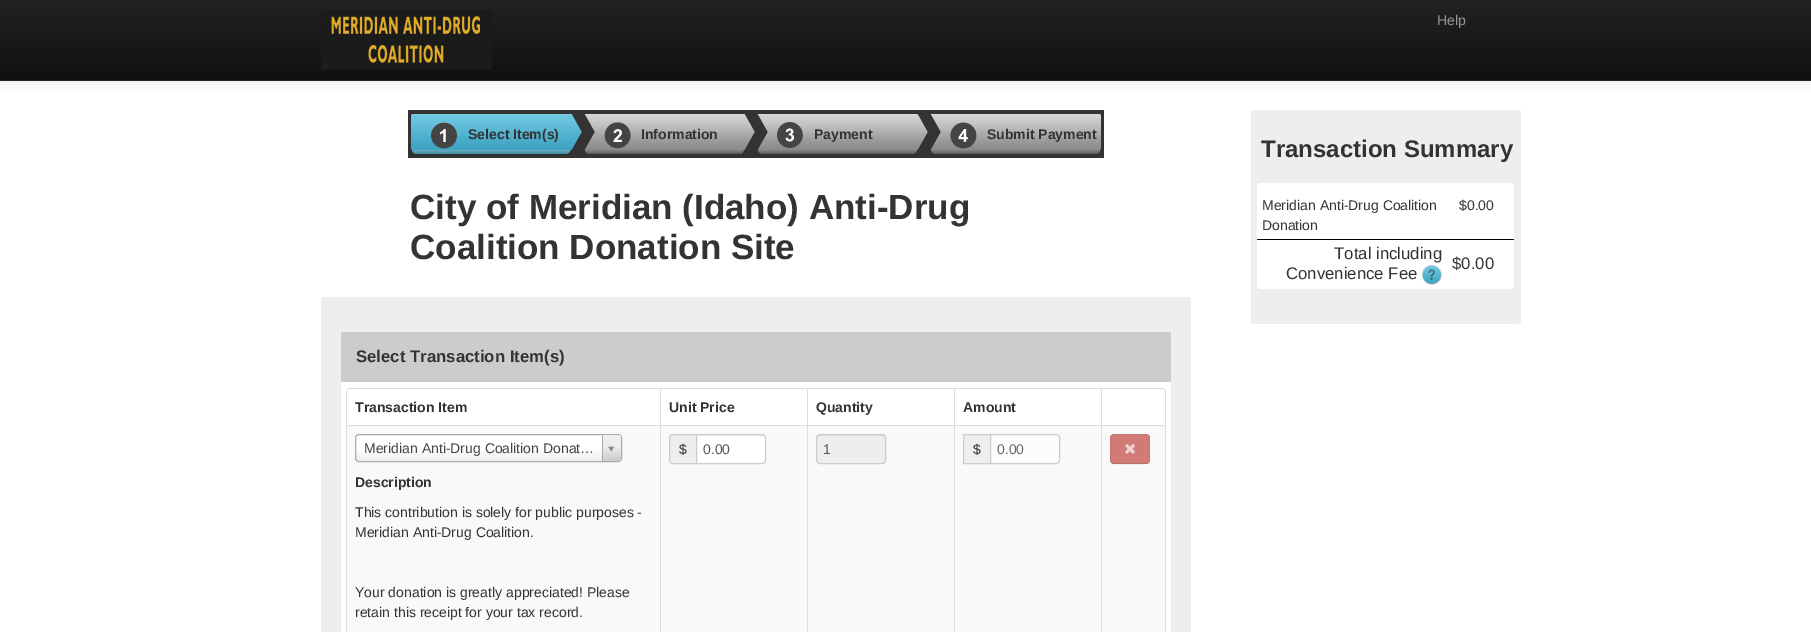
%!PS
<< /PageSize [1811 632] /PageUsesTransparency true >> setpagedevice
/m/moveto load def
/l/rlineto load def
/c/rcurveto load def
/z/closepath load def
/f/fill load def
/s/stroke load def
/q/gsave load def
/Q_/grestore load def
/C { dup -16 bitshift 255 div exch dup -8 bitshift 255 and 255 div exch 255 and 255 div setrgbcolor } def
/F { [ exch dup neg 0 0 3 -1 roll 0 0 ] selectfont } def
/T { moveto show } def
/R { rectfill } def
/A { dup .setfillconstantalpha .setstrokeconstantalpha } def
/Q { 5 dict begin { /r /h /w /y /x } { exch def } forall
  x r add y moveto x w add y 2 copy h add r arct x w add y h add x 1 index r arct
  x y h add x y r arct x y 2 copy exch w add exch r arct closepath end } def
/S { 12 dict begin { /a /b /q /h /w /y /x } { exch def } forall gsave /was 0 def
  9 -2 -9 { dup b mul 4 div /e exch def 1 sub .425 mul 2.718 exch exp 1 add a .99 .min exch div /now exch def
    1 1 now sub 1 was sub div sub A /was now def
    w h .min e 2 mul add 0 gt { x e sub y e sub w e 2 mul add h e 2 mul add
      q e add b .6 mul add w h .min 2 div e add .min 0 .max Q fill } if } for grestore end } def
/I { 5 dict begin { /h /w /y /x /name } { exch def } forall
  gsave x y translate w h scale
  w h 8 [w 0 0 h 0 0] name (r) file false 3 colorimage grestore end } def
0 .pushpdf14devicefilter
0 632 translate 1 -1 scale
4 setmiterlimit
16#FFFFFF C
0 0 1811 632 R
16#000000 C
0 1 1811 81 0 5 .1 S
q 0 0 m 1811 0 l 0 80 l -1811 0 l z clip newpath
<< /ShadingType 2 /ColorSpace /DeviceRGB /Coords [906 0 906 80] /Extend [true true] /Function << /FunctionType 2 /Domain [0 1] /C0 [.133 .133 .133] /C1 [.067 .067 .067] /N 1 >> >> shfill Q_
16#252525 C
0 80 1811 1 R
(1.rgb) 321 10 171 60 I
/LiberationSans-Regular 14 F
16#999999 C
(Help) 1437 25 T
16#333333 C
408 110 696 48 R
(2.rgb) 411 114 171 40 I
(3.rgb) 431 122 26 27 I
/LiberationSans-Bold 14 F
(Select Item\(s\)) 468 139 T
(4.rgb) 584 114 171 40 I
(5.rgb) 604 122 27 27 I
(Information) 641 139 T
(4.rgb) 757 114 171 40 I
(6.rgb) 777 122 26 26 I
(Payment) 814 139 T
(7.rgb) 930 114 171 40 I
(8.rgb) 950 122 27 27 I
(Submit Payment) 987 139 T
/LiberationSans-Bold 35 F
(City of Meridian \(Idaho\) Anti-Drug) 410 219 T
(Coalition Donation Site) 410 259 T
16#EEEEEE C
321 297 870 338 3 Q f
16#CCCCCC C
341 332 830 50 R
16#FFFFFF C
341 382 830 250 R
/LiberationSans-Bold 16.75 F
16#333333 C
(Select Transaction Item\(s\)) 356 362 T
16#DDDDDD C
350 388 m 812 0 l 2 0 4 2 4 4 c 0 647 l 0 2 -2 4 -4 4 c -812 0 l -2 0 -4 -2 -4 -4 c 0 -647 l 0 -2 2 -4 4 -4 c z 350 389 m 812 0 l 2 0 3 1 3 3 c 0 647 l 0 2 -1 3 -3 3 c -812 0 l -2 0 -4 -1 -4 -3 c 0 -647 l 0 -2 2 -3 4 -3 c z eofill
346 391 1 34 R
/LiberationSans-Bold 14 F
16#333333 C
(Transaction Item) 355 412 T
16#DDDDDD C
660 389 1 36 R
16#333333 C
(Unit Price) 669 412 T
16#DDDDDD C
807 389 1 36 R
16#333333 C
(Quantity) 816 412 T
16#DDDDDD C
954 389 1 36 R
16#333333 C
(Amount) 963 412 T
16#DDDDDD C
1101 389 1 36 R
16#F9F9F9 C
347 426 313 206 R
16#DDDDDD C
346 425 819 1 R
346 425 1 207 R
q 356 435 265 26 3 Q clip newpath
<< /ShadingType 2 /ColorSpace /DeviceRGB /Coords [356 461 356 435] /Extend [true true] /Function << /FunctionType 3 /Domain [0 1] /Functions [<< /FunctionType 2 /Domain [0 1] /C0 [.933 .933 .933] /C1 [1 1 1] /N 1 >> << /FunctionType 2 /Domain [0 1] /C0 [1 1 1] /C1 [1 1 1] /N 1 >>] /Bounds [.5] /Encode [0 1 0 1] >> >> shfill Q_
16#AAAAAA C
355.5 434.5 266 27 3.5 Q s
/LiberationSans-Regular 14 F
16#444444 C
(Meridian Anti-Drug Coalition Donat…) 364 453 T
q
356 435 265 26 3 Q clip newpath
q 602 435 m 15 0 l 2 0 4 2 4 4 c 0 18 l 0 2 -2 4 -4 4 c -15 0 l z clip newpath
<< /ShadingType 2 /ColorSpace /DeviceRGB /Coords [603 461 603 435] /Extend [true true] /Function << /FunctionType 3 /Domain [0 1] /Functions [<< /FunctionType 2 /Domain [0 1] /C0 [.8 .8 .8] /C1 [.933 .933 .933] /N 1 >> << /FunctionType 2 /Domain [0 1] /C0 [.933 .933 .933] /C1 [.933 .933 .933] /N 1 >>] /Bounds [.6] /Encode [0 1 0 1] >> >> shfill Q_
Q_
16#AAAAAA C
602 435 1 26 R
(9.rgb) 608 446 7 6 I
/LiberationSans-Bold 14 F
16#333333 C
(Description) 355 487 T
/LiberationSans-Regular 14 F
(This contribution is solely for public purposes -) 355 517 T
(Meridian Anti-Drug Coalition.) 355 537 T
(Your donation is greatly appreciated! Please) 355 597 T
(retain this receipt for your tax record.) 355 617 T
16#F9F9F9 C
661 426 146 206 R
16#DDDDDD C
660 425 1 207 R
16#EEEEEE C
673 434.5 m 23.5 0 l 0 29 l -23.5 0 l -2 0 -3.5 -1.5 -3.5 -3.5 c 0 -22 l 0 -2 1.5 -3.5 3.5 -3.5 c z q f Q_
16#CCCCCC C
s
16#333333 C
($) 679 454 T
16#FFFFFF C
696 434 m 66 0 l 2 0 4 2 4 4 c 0 22 l 0 2 -2 4 -4 4 c -66 0 l z f
16#ECECEC C
697 436 m 65 0 l 2 0 3 1 3 3 c 0 -1 l 0 -2 -1 -3 -3 -3 c -65 0 l z f
16#CCCCCC C
696.5 434.5 m 65.5 0 l 2 0 3.5 1.5 3.5 3.5 c 0 22 l 0 2 -1.5 3.5 -3.5 3.5 c -65.5 0 l z s
16#555555 C
(0.00) 703 454 T
16#F9F9F9 C
808 426 146 206 R
16#DDDDDD C
807 425 1 207 R
16#EEEEEE C
816 434 70 30 4 Q f
16#DCDCDC C
820 436 m 62 0 l 2 0 3 1 3 3 c 0 -7 -9 -4 -13 -4 c -42 0 l -4 0 -13 -3 -13 4 c 0 -2 1 -3 3 -3 c z f
16#CCCCCC C
816.5 434.5 69 29 3.5 Q s
16#555555 C
(1) 823 454 T
16#F9F9F9 C
955 426 146 206 R
16#DDDDDD C
954 425 1 207 R
16#EEEEEE C
963.5 434.5 m 27 0 l 0 29 l -27 0 l z q f Q_
16#CCCCCC C
s
16#333333 C
($) 973 454 T
16#FCFCFC C
990.5 434.5 m 65.5 0 l 2 0 3.5 1.5 3.5 3.5 c 0 22 l 0 2 -1.5 3.5 -3.5 3.5 c -65.5 0 l z q f Q_
16#CCCCCC C
s
16#696969 C
(0.00) 997 454 T
16#F9F9F9 C
1102 426 63 206 R
16#DDDDDD C
1101 425 1 207 R
16#D27A76 C
1110 434 40 30 4 Q f
0.25 A
16#575757 C
1148.5 462.5 m -.5 .5 -1.5 1 -2.5 1 c -32 0 l -1 0 -2 -.5 -2.5 -1 c s
0.1 A
1111.5 462.5 m -.5 -.5 -1 -1.5 -1 -2.5 c 0 -22 l 0 -1 .5 -2 1 -2.5 c .5 -.5 1.5 -1 2.5 -1 c 32 0 l 1 0 2 .5 2.5 1 c .5 .5 1 1.5 1 2.5 c 0 22 l 0 1 -.5 2 -1 2.5 c s
1 A
(10.rgb) 1125 444 10 11 I
16#EEEEEE C
1251 110 270 214 3 Q f
/LiberationSans-Bold 24 F
16#333333 C
(Transaction Summary) 1261 157 T
16#FFFFFF C
1257 183 257 106 3 Q f
/LiberationSans-Regular 14 F
16#333333 C
(Meridian Anti-Drug Coalition) 1262 210 T
(Donation) 1262 230 T
($0.00) 1459 210 T
/LiberationSans-Regular 16.75 F
(Total including) 1334 259 T
(Convenience Fee) 1286 279 T
(11.rgb) 1422 265 20 20 I
16#000000 C
1257 239 257 1 R
16#333333 C
($0.00) 1452 269 T
.poppdf14devicefilter showpage
